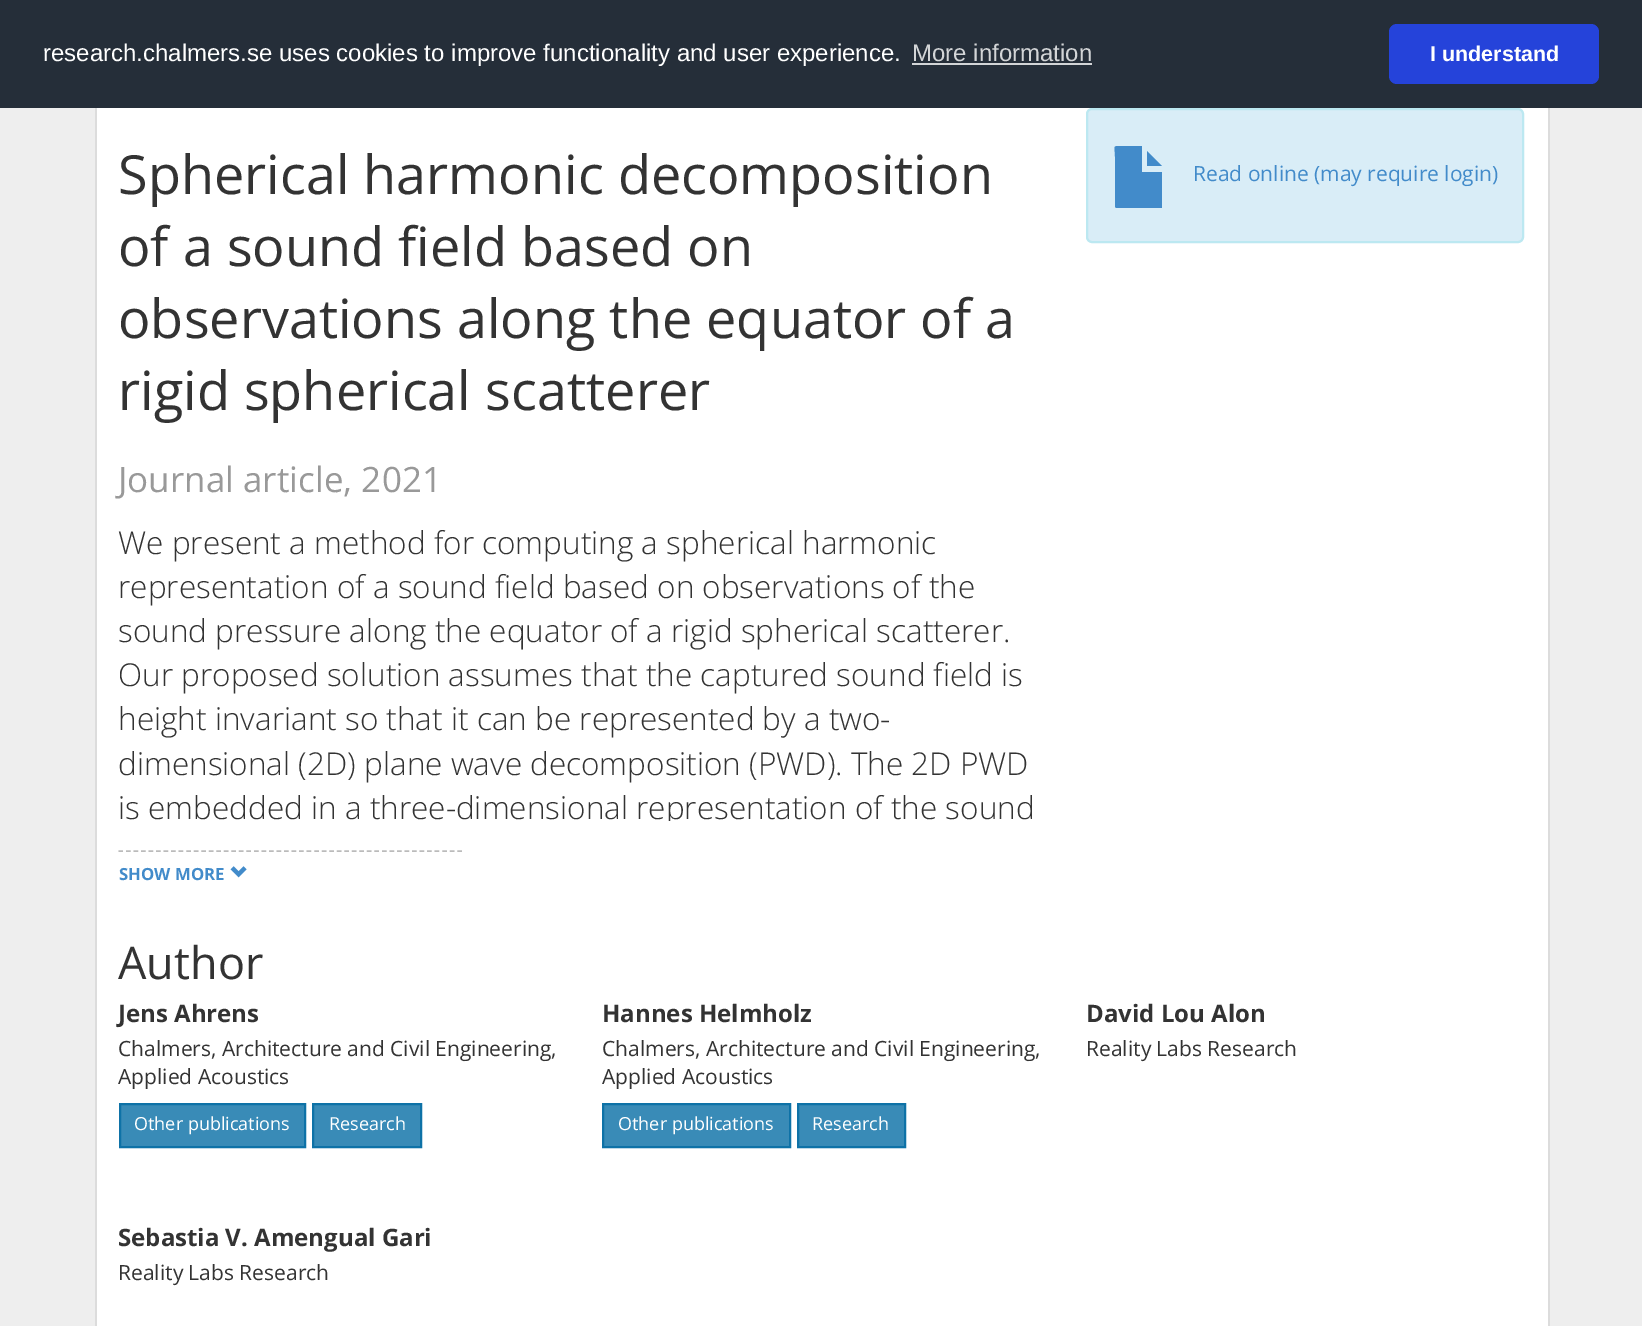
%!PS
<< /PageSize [1642 1326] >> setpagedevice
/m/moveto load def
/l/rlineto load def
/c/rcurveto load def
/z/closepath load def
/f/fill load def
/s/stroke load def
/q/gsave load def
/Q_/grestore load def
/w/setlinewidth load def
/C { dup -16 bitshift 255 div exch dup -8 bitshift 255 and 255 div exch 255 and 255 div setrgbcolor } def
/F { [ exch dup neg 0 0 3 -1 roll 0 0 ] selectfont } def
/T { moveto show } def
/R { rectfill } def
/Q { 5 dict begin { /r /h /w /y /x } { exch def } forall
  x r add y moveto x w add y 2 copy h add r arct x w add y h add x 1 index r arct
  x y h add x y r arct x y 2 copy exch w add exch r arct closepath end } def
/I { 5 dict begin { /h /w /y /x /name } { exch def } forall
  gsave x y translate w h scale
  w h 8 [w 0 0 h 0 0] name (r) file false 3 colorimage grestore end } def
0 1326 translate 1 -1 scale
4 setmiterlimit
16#EEEEEE C
0 0 1642 1326 R
16#252E39 C
0 0 1642 108 R
/LiberationSans-Regular 24 F
16#FFFFFF C
(research.chalmers.se uses cookies to improve functionality and user experience.) 43 61 T
16#D3D5D7 C
(More information) 912 61 T
912 63 180 2 R
16#2543DA C
1389 24 210 60 8 Q f
/LiberationSans-Bold 21.5 F
16#FFFFFF C
(I understand) 1430 61 T
97 108 1451 1218 R
16#DCDCDC C
1548 108 2 1218 R
95 108 2 1218 R
/OpenSans-Regular 54 F
16#333333 C
(Spherical harmonic decomposition) 118 194 T
(of a sound field based on) 118 266 T
(observations along the equator of a) 118 338 T
(rigid spherical scatterer) 118 410 T
/OpenSans-Regular 35 F
16#999999 C
(Journal article, 2021) 118 492 T
/OpenSans-Light 31.5 F
16#333333 C
(We present a method for computing a spherical harmonic) 118 554 T
(representation of a sound field based on observations of the) 118 598 T
(sound pressure along the equator of a rigid spherical scatterer.) 118 642 T
(Our proposed solution assumes that the captured sound field is) 118 686 T
(height invariant so that it can be represented by a two-) 118 730 T
(dimensional \(2D\) plane wave decomposition \(PWD\). The 2D PWD) 118 775 T
q
119 521 922 300 rectclip
(is embedded in a three-dimensional representation of the sound) 118 819 T
Q_
16#BBBBBB C
1.5 w
[4.5 3.03] 0 setdash
118.5 851 m 343.5 0 l s
/OpenSans-Bold 16.75 F
16#428BCA C
(SHOW MORE) 119 880 T
(1.rgb) 230 866 17 12 I
16#D9EDF7 C
1087 109 436 133 5 Q q f Q_
16#BCE8F1 C
2 w
[] 0 setdash
s
16#428BCA C
1115 207 m 0 -50 l 0 -11 -3 -11 6 -11 c 21 0 l 0 26 l 20 0 l 0 36 l -1 0 l -37 0 l -8 0 l z 1147 166 m 0 -15 l 15 15 l z f
/OpenSans-Regular 21 F
(Read online \(may require login\)) 1193 181 T
/OpenSans-Regular 45 F
16#333333 C
(Author) 118 979 T
/OpenSans-Bold 24 F
(Jens Ahrens) 118 1022 T
/OpenSans-Regular 21 F
(Chalmers, Architecture and Civil Engineering,) 118 1056 T
(Applied Acoustics) 118 1084 T
16#398BB7 C
120 1104 m 185 0 l 0 43 l -185 0 l z q f Q_
16#0E72A7 C
s
/OpenSans-Regular 18 F
16#FFFFFF C
(Other publications) 134 1130 T
16#398BB7 C
313 1104 m 108 0 l 0 43 l -108 0 l z q f Q_
16#0E72A7 C
s
16#FFFFFF C
(Research) 329 1130 T
/OpenSans-Bold 24 F
16#333333 C
(Hannes Helmholz) 602 1022 T
/OpenSans-Regular 21 F
(Chalmers, Architecture and Civil Engineering,) 602 1056 T
(Applied Acoustics) 602 1084 T
16#398BB7 C
603 1104 m 187 0 l 0 43 l -187 0 l z q f Q_
16#0E72A7 C
s
/OpenSans-Regular 18 F
16#FFFFFF C
(Other publications) 618 1130 T
16#398BB7 C
798 1104 m 107 0 l 0 43 l -107 0 l z q f Q_
16#0E72A7 C
s
16#FFFFFF C
(Research) 812 1130 T
/OpenSans-Bold 24 F
16#333333 C
(David Lou Alon) 1086 1022 T
/OpenSans-Regular 21 F
(Reality Labs Research) 1086 1056 T
/OpenSans-Bold 24 F
(Sebastia V. Amengual Gari) 118 1246 T
/OpenSans-Regular 21 F
(Reality Labs Research) 118 1280 T
showpage
